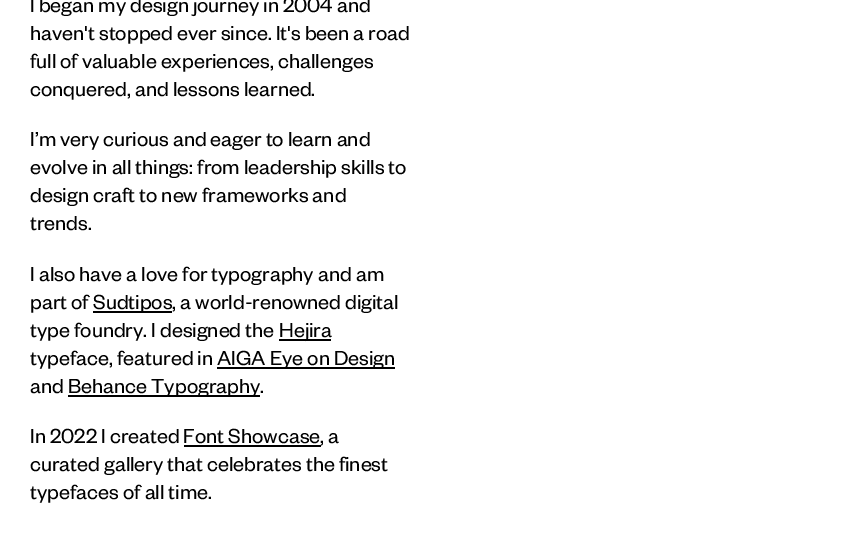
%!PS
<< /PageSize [847 549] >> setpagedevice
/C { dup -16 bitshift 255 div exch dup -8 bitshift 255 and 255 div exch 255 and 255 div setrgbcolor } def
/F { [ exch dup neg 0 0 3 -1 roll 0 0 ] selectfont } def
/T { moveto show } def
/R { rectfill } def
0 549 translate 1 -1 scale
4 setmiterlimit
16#FFFFFF C
0 0 847 549 R
/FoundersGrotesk-Regular 22.4 F
16#000000 C
(I began my design journey in 2004 and) 30 12 T
(haven't stopped ever since. It's been a road) 30 40 T
(full of valuable experiences, challenges) 30 68 T
(conquered, and lessons learned.) 30 96 T
(I’m very curious and eager to learn and) 30 146 T
(evolve in all things: from leadership skills to) 30 174 T
(design craft to new frameworks and) 30 202 T
(trends.) 30 230 T
(I also have a love for typography and am) 30 281 T
(part of) 30 309 T
93 311 79 2 R
(Sudtipos, a world-renowned digital) 93 309 T
(type foundry. I designed the) 30 337 T
279 339 52 2 R
(Hejira) 279 337 T
(typeface, featured in) 30 365 T
217 367 178 2 R
(AIGA Eye on Design) 217 365 T
(and) 30 393 T
68 395 192 2 R
(Behance Typography.) 68 393 T
(In 2022 I created Font Showcase, a) 30 443 T
184 445 137 2 R
(curated gallery that celebrates the finest) 30 471 T
(typefaces of all time.) 30 499 T
showpage
